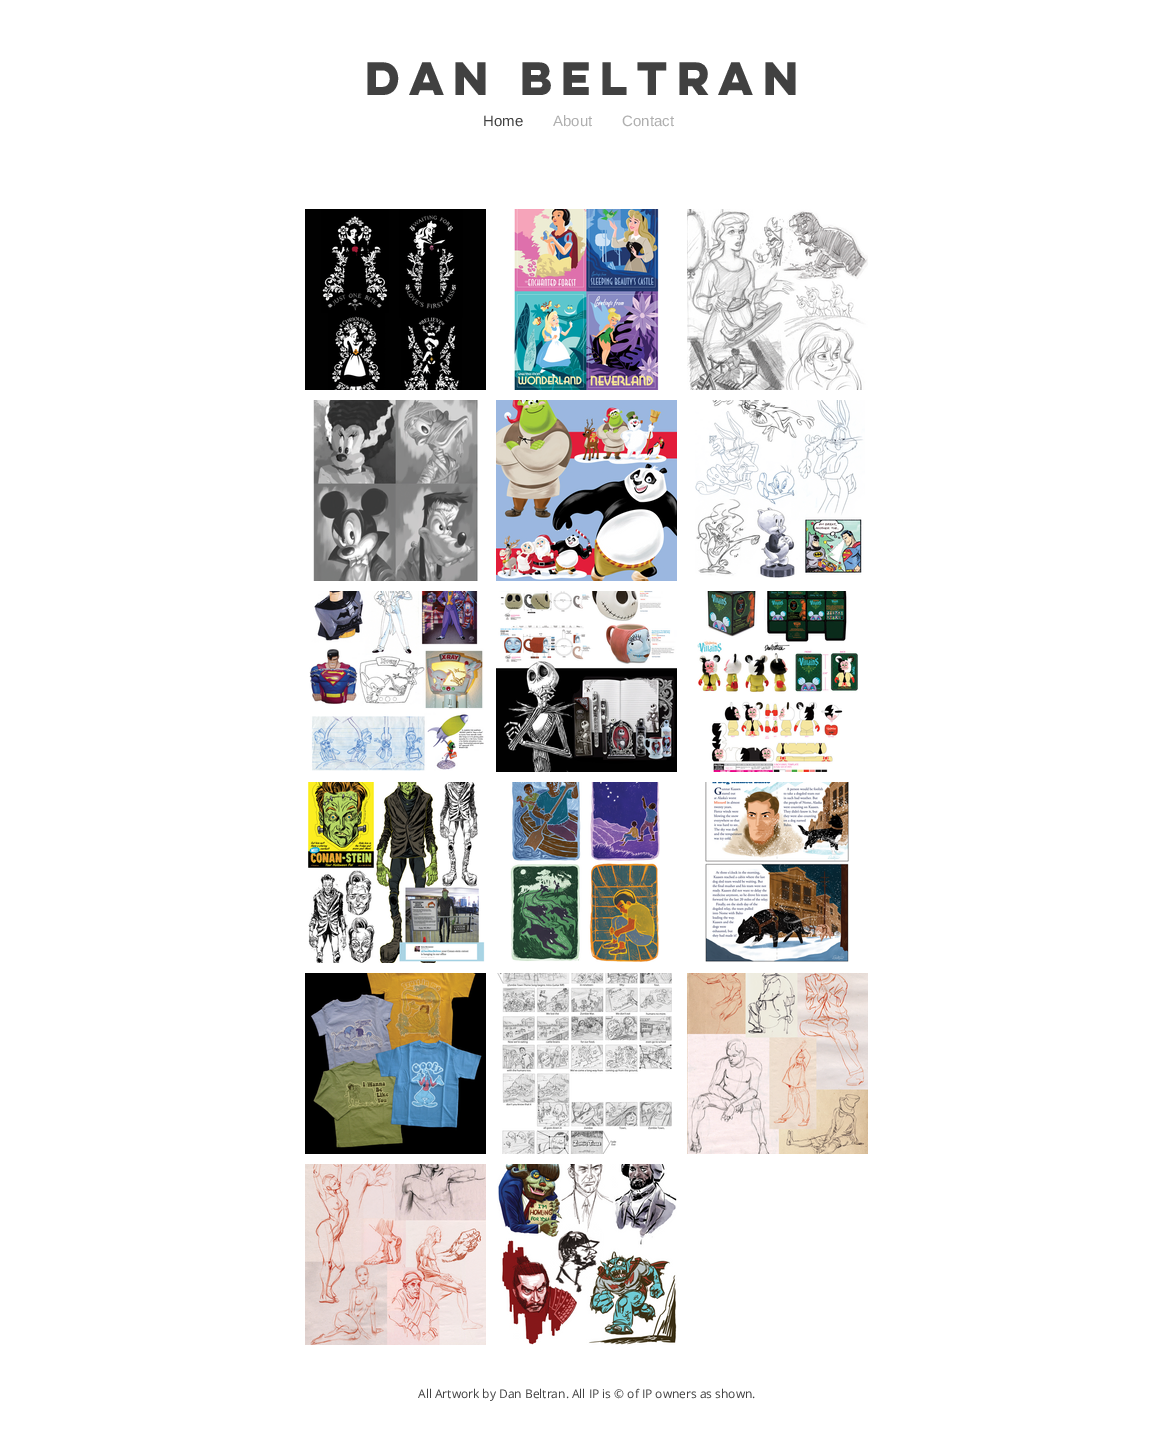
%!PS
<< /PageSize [1173 1447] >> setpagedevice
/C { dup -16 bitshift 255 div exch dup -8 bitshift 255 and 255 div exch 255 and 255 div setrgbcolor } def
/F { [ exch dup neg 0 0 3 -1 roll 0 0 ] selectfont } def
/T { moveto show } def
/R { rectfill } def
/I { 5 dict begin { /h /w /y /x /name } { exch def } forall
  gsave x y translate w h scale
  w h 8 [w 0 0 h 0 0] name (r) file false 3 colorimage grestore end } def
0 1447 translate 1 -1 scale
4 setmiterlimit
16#FFFFFF C
0 0 1173 1447 R
/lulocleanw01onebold-Bold 42 F
16#414141 C
(Dan Beltran) 365 95 T
/LiberationSans-Regular 15 F
(Home) 483 126 T
16#AFAFAF C
(About) 553 126 T
(Contact) 622 126 T
(1.rgb) 305 209 181 181 I
(2.rgb) 514 209 145 181 I
(3.rgb) 687 209 181 181 I
(4.rgb) 313 400 165 181 I
(5.rgb) 496 400 181 181 I
(6.rgb) 695 400 170 178 I
(7.rgb) 309 591 175 180 I
(8.rgb) 496 591 181 181 I
(9.rgb) 697 591 161 181 I
(10.rgb) 308 782 177 181 I
(11.rgb) 510 782 150 180 I
(12.rgb) 705 782 144 180 I
(13.rgb) 305 973 181 181 I
(14.rgb) 497 973 175 181 I
(15.rgb) 687 973 181 181 I
(16.rgb) 305 1164 181 181 I
(17.rgb) 497 1164 180 181 I
/OpenSans-Regular 12 F
16#414141 C
(All Artwork by Dan Beltran. All IP is © of IP owners as shown.) 418 1398 T
showpage
